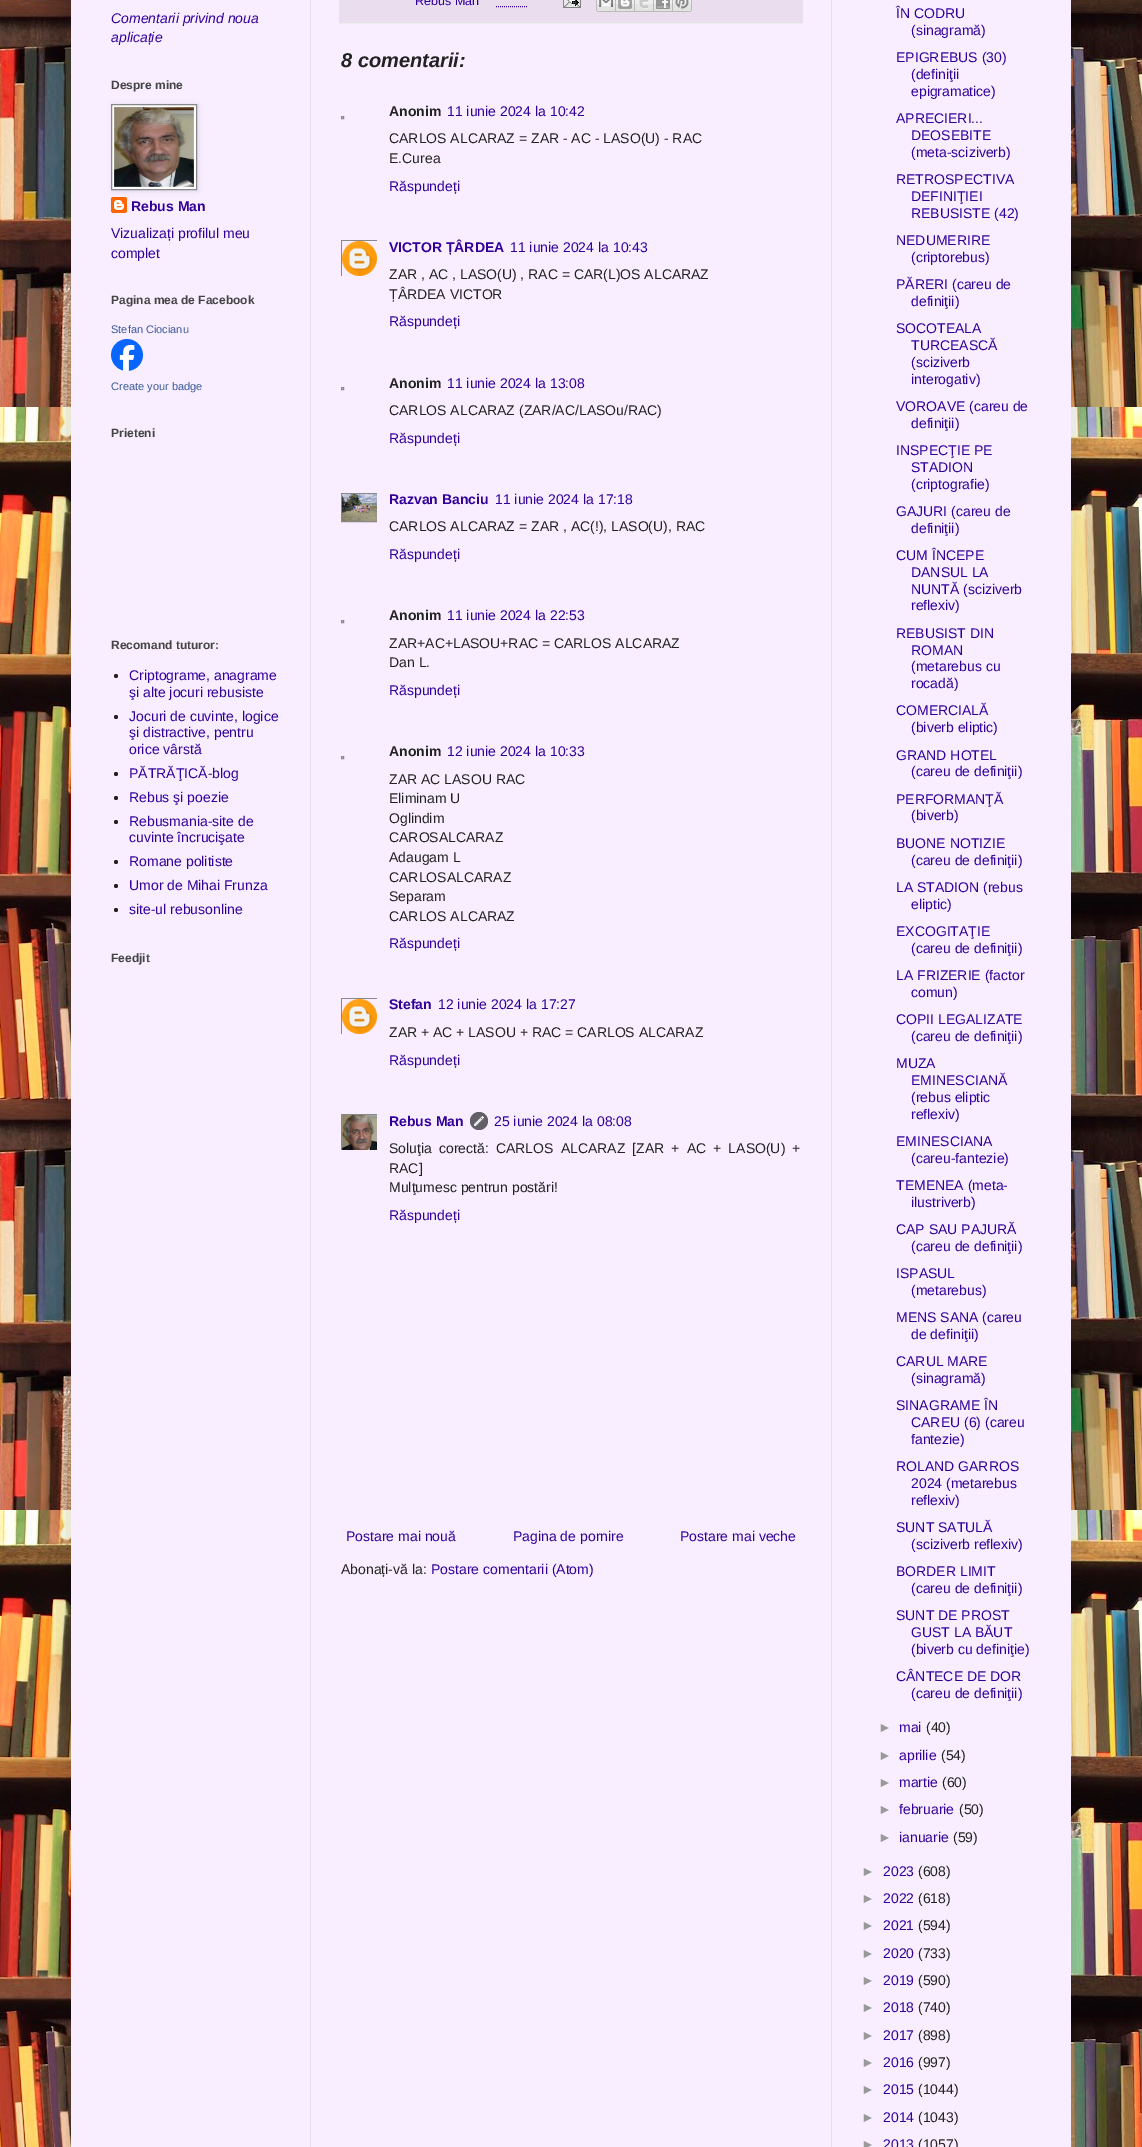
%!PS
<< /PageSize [1142 2147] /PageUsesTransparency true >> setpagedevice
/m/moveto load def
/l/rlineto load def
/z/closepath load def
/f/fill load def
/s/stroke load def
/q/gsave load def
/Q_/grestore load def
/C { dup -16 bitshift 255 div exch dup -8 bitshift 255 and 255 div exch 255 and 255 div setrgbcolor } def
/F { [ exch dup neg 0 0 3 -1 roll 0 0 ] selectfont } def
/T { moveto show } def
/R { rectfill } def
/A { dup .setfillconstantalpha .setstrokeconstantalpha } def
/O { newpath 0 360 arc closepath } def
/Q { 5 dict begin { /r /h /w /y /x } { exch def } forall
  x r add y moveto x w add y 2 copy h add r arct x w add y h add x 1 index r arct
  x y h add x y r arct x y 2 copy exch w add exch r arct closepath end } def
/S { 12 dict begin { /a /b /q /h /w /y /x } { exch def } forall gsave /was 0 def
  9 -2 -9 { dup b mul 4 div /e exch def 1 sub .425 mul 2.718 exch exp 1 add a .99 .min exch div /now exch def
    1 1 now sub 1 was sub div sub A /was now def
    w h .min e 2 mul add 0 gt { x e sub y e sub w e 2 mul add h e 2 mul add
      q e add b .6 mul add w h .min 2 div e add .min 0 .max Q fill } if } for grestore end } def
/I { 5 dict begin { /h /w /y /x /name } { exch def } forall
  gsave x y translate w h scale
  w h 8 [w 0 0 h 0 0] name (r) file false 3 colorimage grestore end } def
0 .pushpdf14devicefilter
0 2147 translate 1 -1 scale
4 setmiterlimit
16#FFFFFF C
0 0 1142 2147 R
(1.rgb) 0 0 1142 2147 I
16#000000 C
71 -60 1000 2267 0 20 .15 S
16#F8EEFF C
71 0 1000 2147 R
/LiberationSans-Italic 14 F
16#320099 C
(Comentarii privind noua) 111 23 T
(aplicație) 111 42 T
/LiberationSans-Bold 12 F
16#444444 C
(Despre mine) 111 89 T
(3.rgb) 111 197 16 16 I
16#000000 C
112 105 86 86 0 2.5 .1 S
16#FFFFFF C
111.5 104.5 m 85 0 l 0 85 l -85 0 l z q f Q_
16#888888 C
s
(2.rgb) 114 107 80 80 I
/LiberationSans-Bold 14 F
16#320099 C
(Rebus Man) 131 211 T
/LiberationSans-Regular 14 F
(Vizualizați profilul meu) 111 238 T
(complet) 111 258 T
/LiberationSans-Bold 12 F
16#444444 C
(Pagina mea de Facebook) 111 304 T
/LiberationSans-Regular 11 F
16#3B5998 C
(Stefan Ciocianu) 111 333 T
(4.rgb) 111 339 32 32 I
(Create your badge) 111 390 T
/LiberationSans-Bold 12 F
16#444444 C
(Prieteni) 111 437 T
(Recomand tuturor:) 111 649 T
16#222222 C
116 676 2 O f
/LiberationSans-Regular 14 F
16#320099 C
(Criptograme, anagrame) 129 680 T
(şi alte jocuri rebusiste) 129 697 T
16#222222 C
116 717 2 O f
16#320099 C
(Jocuri de cuvinte, logice) 129 721 T
(şi distractive, pentru) 129 737 T
(orice vârstă) 129 754 T
16#222222 C
116 774 2 O f
16#320099 C
(PĂTRĂŢICĂ-blog) 129 778 T
16#222222 C
116 798 2 O f
16#320099 C
(Rebus şi poezie) 129 802 T
16#222222 C
116 822 2 O f
16#320099 C
(Rebusmania-site de) 129 826 T
(cuvinte încrucişate) 129 842 T
16#222222 C
116 862 2 O f
16#320099 C
(Romane politiste) 129 866 T
16#222222 C
116 886 2 O f
16#320099 C
(Umor de Mihai Frunza) 129 890 T
16#222222 C
116 910 2 O f
16#320099 C
(site-ul rebusonline) 129 914 T
/LiberationSans-Bold 12 F
16#444444 C
(Feedjit) 111 962 T
16#E9DDEE C
339 0 464 23 R
16#EEEEEE C
339 23 464 1 R
/LiberationSans-Regular 12.5 F
16#320099 C
(Rebus Man) 415 5 T
[1 1] 0 setdash
496 6.5 m 31.5 0 l s
(5.rgb) 563 0 18 8 I
(6.rgb) 596 0 20 12 I
(7.rgb) 616 0 19 12 I
(8.rgb) 635 0 19 12 I
(9.rgb) 654 0 19 12 I
(10.rgb) 673 0 19 12 I
/LiberationSans-BoldItalic 20 F
16#222222 C
(8 comentarii:) 341 67 T
16#888888 C
[] 0 setdash
341.5 116.5 2 2 rectstroke
/LiberationSans-Bold 14 F
16#222222 C
(Anonim) 389 116 T
/LiberationSans-Regular 14 F
16#320099 C
(11 iunie 2024 la 10:42) 447 116 T
16#222222 C
(CARLOS ALCARAZ = ZAR - AC - LASO\(U\) - RAC) 389 143 T
(E.Curea) 389 163 T
16#320099 C
(Răspundeți) 389 191 T
q
341 240 36 36 rectclip
16#888888 C
341.5 240.5 36 36 rectstroke
Q_
(11.rgb) 342 241 35 35 I
/LiberationSans-Bold 14 F
(VICTOR ȚÂRDEA) 389 252 T
/LiberationSans-Regular 14 F
(11 iunie 2024 la 10:43) 510 252 T
16#222222 C
(ZAR , AC , LASO\(U\) , RAC = CAR\(L\)OS ALCARAZ) 389 279 T
(ȚÂRDEA VICTOR) 389 299 T
16#320099 C
(Răspundeți) 389 326 T
16#888888 C
341.5 387.5 2 2 rectstroke
/LiberationSans-Bold 14 F
16#222222 C
(Anonim) 389 388 T
/LiberationSans-Regular 14 F
16#320099 C
(11 iunie 2024 la 13:08) 447 388 T
16#222222 C
(CARLOS ALCARAZ \(ZAR/AC/LASOu/RAC\)) 389 415 T
16#320099 C
(Răspundeți) 389 443 T
q
341 493 36 34 rectclip
16#888888 C
341.5 493.5 37 28 rectstroke
Q_
(12.rgb) 342 494 35 27 I
/LiberationSans-Bold 14 F
(Razvan Banciu) 389 504 T
/LiberationSans-Regular 14 F
(11 iunie 2024 la 17:18) 495 504 T
16#222222 C
(CARLOS ALCARAZ = ZAR , AC\(!\), LASO\(U\), RAC) 389 531 T
16#320099 C
(Răspundeți) 389 559 T
16#888888 C
341.5 620.5 2 2 rectstroke
/LiberationSans-Bold 14 F
16#222222 C
(Anonim) 389 620 T
/LiberationSans-Regular 14 F
16#320099 C
(11 iunie 2024 la 22:53) 447 620 T
16#222222 C
(ZAR+AC+LASOU+RAC = CARLOS ALCARAZ) 389 648 T
(Dan L.) 389 667 T
16#320099 C
(Răspundeți) 389 695 T
16#888888 C
341.5 756.5 2 2 rectstroke
/LiberationSans-Bold 14 F
16#222222 C
(Anonim) 389 756 T
/LiberationSans-Regular 14 F
16#320099 C
(12 iunie 2024 la 10:33) 447 756 T
16#222222 C
(ZAR AC LASOU RAC) 389 784 T
(Eliminam U) 389 803 T
(Oglindim) 389 823 T
(CAROSALCARAZ) 389 842 T
(Adaugam L) 389 862 T
(CARLOSALCARAZ) 389 882 T
(Separam) 389 901 T
(CARLOS ALCARAZ) 389 921 T
16#320099 C
(Răspundeți) 389 948 T
q
341 998 36 36 rectclip
16#888888 C
341.5 998.5 36 36 rectstroke
Q_
(11.rgb) 342 999 35 35 I
/LiberationSans-Bold 14 F
(Stefan) 389 1009 T
/LiberationSans-Regular 14 F
(12 iunie 2024 la 17:27) 438 1009 T
16#222222 C
(ZAR + AC + LASOU + RAC = CARLOS ALCARAZ) 389 1037 T
16#320099 C
(Răspundeți) 389 1065 T
q
341 1114 36 36 rectclip
16#888888 C
341.5 1114.5 37 37 rectstroke
Q_
(13.rgb) 342 1115 35 35 I
/LiberationSans-Bold 14 F
(Rebus Man) 389 1126 T
(14.rgb) 470 1112 18 18 I
/LiberationSans-Regular 14 F
(25 iunie 2024 la 08:08) 494 1126 T
16#222222 C
389 1153 m 3.25 0 32 (Soluţia corectă: CARLOS ALCARAZ [ZAR + AC + LASO\(U\) +) widthshow
(RAC]) 389 1173 T
(Mulţumesc pentrun postări!) 389 1192 T
16#320099 C
(Răspundeți) 389 1220 T
(Postare mai nouă) 346 1541 T
(Pagina de pornire) 513 1541 T
(Postare mai veche) 680 1541 T
16#222222 C
(Abonați-vă la:) 341 1574 T
16#320099 C
(Postare comentarii \(Atom\)) 431 1574 T
(ÎN CODRU) 896 18 T
(\(sinagramă\)) 911 35 T
(EPIGREBUS \(30\)) 896 62 T
(\(definiţii) 911 79 T
(epigramatice\)) 911 96 T
(APRECIERI...) 896 123 T
(DEOSEBITE) 911 140 T
(\(meta-sciziverb\)) 911 157 T
(RETROSPECTIVA) 896 184 T
(DEFINIŢIEI) 911 201 T
(REBUSISTE \(42\)) 911 218 T
(NEDUMERIRE) 896 245 T
(\(criptorebus\)) 911 262 T
(PĂRERI \(careu de) 896 289 T
(definiţii\)) 911 306 T
(SOCOTEALA) 896 333 T
(TURCEASCĂ) 911 350 T
(\(sciziverb) 911 367 T
(interogativ\)) 911 384 T
(VOROAVE \(careu de) 896 411 T
(definiţii\)) 911 428 T
(INSPECŢIE PE) 896 455 T
(STADION) 911 472 T
(\(criptografie\)) 911 489 T
(GAJURI \(careu de) 896 516 T
(definiţii\)) 911 533 T
(CUM ÎNCEPE) 896 560 T
(DANSUL LA) 911 577 T
(NUNTĂ \(sciziverb) 911 594 T
(reflexiv\)) 911 610 T
(REBUSIST DIN) 896 638 T
(ROMAN) 911 655 T
(\(metarebus cu) 911 671 T
(rocadă\)) 911 688 T
(COMERCIALĂ) 896 715 T
(\(biverb eliptic\)) 911 732 T
(GRAND HOTEL) 896 760 T
(\(careu de definiţii\)) 911 776 T
(PERFORMANŢĂ) 896 804 T
(\(biverb\)) 911 820 T
(BUONE NOTIZIE) 896 848 T
(\(careu de definiţii\)) 911 865 T
(LA STADION \(rebus) 896 892 T
(eliptic\)) 911 909 T
(EXCOGITAŢIE) 896 936 T
(\(careu de definiţii\)) 911 953 T
(LA FRIZERIE \(factor) 896 980 T
(comun\)) 911 997 T
(COPII LEGALIZATE) 896 1024 T
(\(careu de definiţii\)) 911 1041 T
(MUZA) 896 1068 T
(EMINESCIANĂ) 911 1085 T
(\(rebus eliptic) 911 1102 T
(reflexiv\)) 911 1119 T
(EMINESCIANA) 896 1146 T
(\(careu-fantezie\)) 911 1163 T
(TEMENEA \(meta-) 896 1190 T
(ilustriverb\)) 911 1207 T
(CAP SAU PAJURĂ) 896 1234 T
(\(careu de definiţii\)) 911 1251 T
(ISPASUL) 896 1278 T
(\(metarebus\)) 911 1295 T
(MENS SANA \(careu) 896 1322 T
(de definiţii\)) 911 1339 T
(CARUL MARE) 896 1366 T
(\(sinagramă\)) 911 1383 T
(SINAGRAME ÎN) 896 1410 T
(CAREU \(6\) \(careu) 911 1427 T
(fantezie\)) 911 1444 T
(ROLAND GARROS) 896 1471 T
(2024 \(metarebus) 911 1488 T
(reflexiv\)) 911 1505 T
(SUNT SATULĂ) 896 1532 T
(\(sciziverb reflexiv\)) 911 1549 T
(BORDER LIMIT) 896 1576 T
(\(careu de definiţii\)) 911 1593 T
(SUNT DE PROST) 896 1620 T
(GUST LA BĂUT) 911 1637 T
(\(biverb cu definiţie\)) 911 1654 T
(CÂNTECE DE DOR) 896 1681 T
(\(careu de definiţii\)) 911 1698 T
16#999999 C
(►) 878 1732 T
16#320099 C
(mai) 899 1732 T
16#222222 C
(\(40\)) 926 1732 T
16#999999 C
(►) 878 1760 T
16#320099 C
(aprilie) 899 1760 T
16#222222 C
(\(54\)) 941 1760 T
16#999999 C
(►) 878 1787 T
16#320099 C
(martie) 899 1787 T
16#222222 C
(\(60\)) 942 1787 T
16#999999 C
(►) 878 1814 T
16#320099 C
(februarie) 899 1814 T
16#222222 C
(\(50\)) 959 1814 T
16#999999 C
(►) 878 1842 T
16#320099 C
(ianuarie) 899 1842 T
16#222222 C
(\(59\)) 953 1842 T
16#999999 C
(►) 861 1876 T
16#320099 C
(2023) 883 1876 T
16#222222 C
(\(608\)) 918 1876 T
16#999999 C
(►) 861 1903 T
16#320099 C
(2022) 883 1903 T
16#222222 C
(\(618\)) 918 1903 T
16#999999 C
(►) 861 1930 T
16#320099 C
(2021) 883 1930 T
16#222222 C
(\(594\)) 918 1930 T
16#999999 C
(►) 861 1958 T
16#320099 C
(2020) 883 1958 T
16#222222 C
(\(733\)) 918 1958 T
16#999999 C
(►) 861 1985 T
16#320099 C
(2019) 883 1985 T
16#222222 C
(\(590\)) 918 1985 T
16#999999 C
(►) 861 2012 T
16#320099 C
(2018) 883 2012 T
16#222222 C
(\(740\)) 918 2012 T
16#999999 C
(►) 861 2040 T
16#320099 C
(2017) 883 2040 T
16#222222 C
(\(898\)) 918 2040 T
16#999999 C
(►) 861 2067 T
16#320099 C
(2016) 883 2067 T
16#222222 C
(\(997\)) 918 2067 T
16#999999 C
(►) 861 2094 T
16#320099 C
(2015) 883 2094 T
16#222222 C
(\(1044\)) 918 2094 T
16#999999 C
(►) 861 2122 T
16#320099 C
(2014) 883 2122 T
16#222222 C
(\(1043\)) 918 2122 T
16#999999 C
(►) 861 2149 T
16#320099 C
(2013) 883 2149 T
16#222222 C
(\(1057\)) 918 2149 T
16#E5DDEE C
310 0 1 2147 R
831 0 1 2147 R
.poppdf14devicefilter showpage
